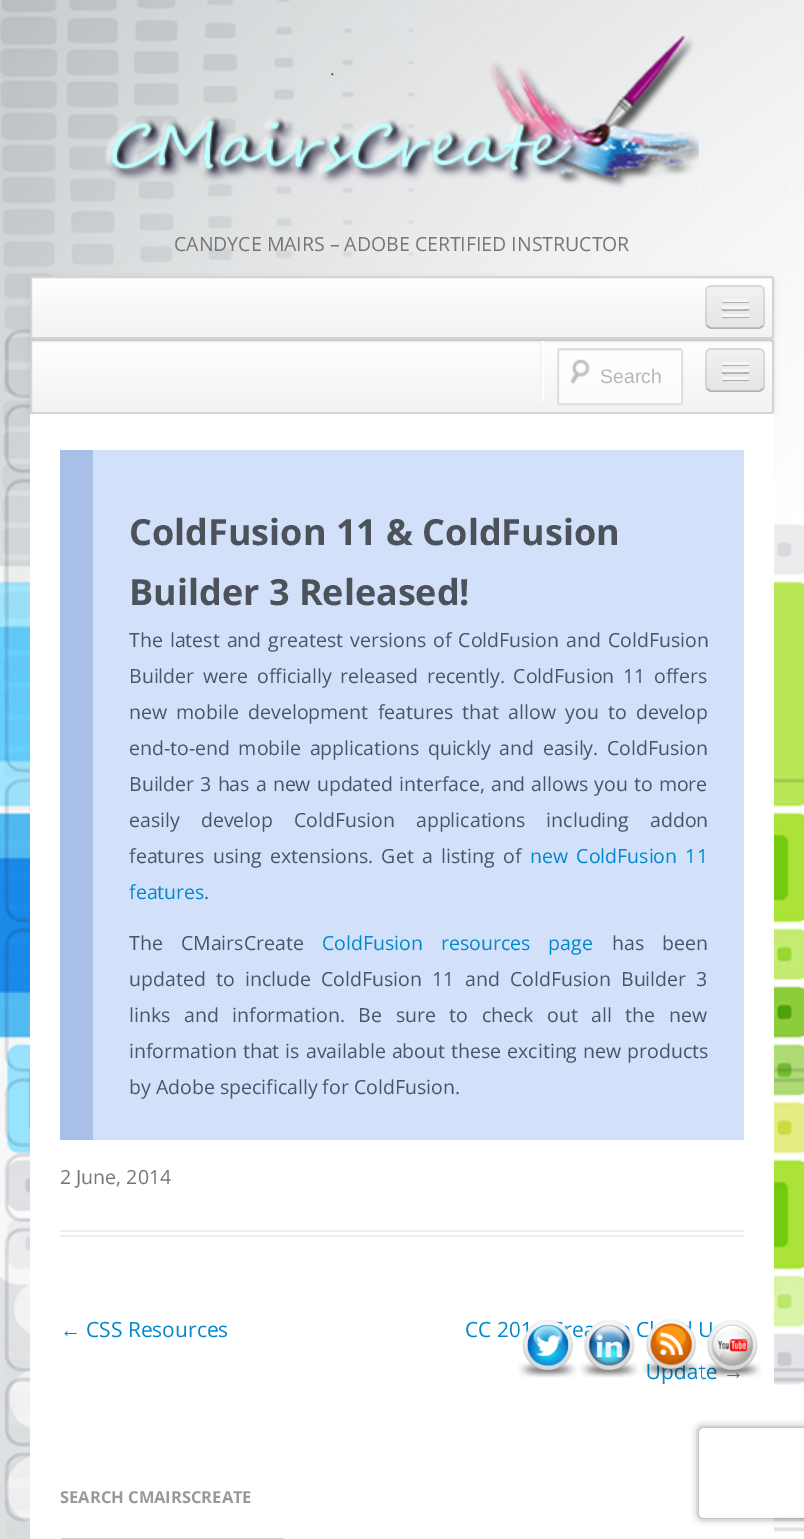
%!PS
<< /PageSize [804 1539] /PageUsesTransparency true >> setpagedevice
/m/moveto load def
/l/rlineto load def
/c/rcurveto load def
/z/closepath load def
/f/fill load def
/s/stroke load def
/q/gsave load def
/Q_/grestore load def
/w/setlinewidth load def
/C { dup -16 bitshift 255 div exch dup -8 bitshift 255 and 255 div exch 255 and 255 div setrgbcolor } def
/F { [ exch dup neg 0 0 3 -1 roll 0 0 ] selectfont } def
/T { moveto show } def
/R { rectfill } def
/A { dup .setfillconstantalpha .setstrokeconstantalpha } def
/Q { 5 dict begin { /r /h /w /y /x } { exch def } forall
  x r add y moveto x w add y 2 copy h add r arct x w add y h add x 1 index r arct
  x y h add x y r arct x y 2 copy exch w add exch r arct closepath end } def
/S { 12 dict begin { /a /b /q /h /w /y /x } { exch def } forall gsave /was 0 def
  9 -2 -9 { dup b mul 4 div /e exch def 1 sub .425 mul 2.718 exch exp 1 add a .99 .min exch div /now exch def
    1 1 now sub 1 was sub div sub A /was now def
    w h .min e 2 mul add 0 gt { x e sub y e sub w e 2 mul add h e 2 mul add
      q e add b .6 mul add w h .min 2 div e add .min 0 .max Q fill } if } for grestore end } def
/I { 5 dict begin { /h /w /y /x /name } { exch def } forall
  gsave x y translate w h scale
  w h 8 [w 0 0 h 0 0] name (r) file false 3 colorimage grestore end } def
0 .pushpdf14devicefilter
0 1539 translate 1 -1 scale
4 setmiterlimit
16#FFFFFF C
0 0 804 1539 R
(1.rgb) 0 0 804 1539 I
(2.rgb) 105 35 594 153 I
/OpenSans-Regular 19.5 F
16#757575 C
(CANDYCE MAIRS – ADOBE CERTIFIED INSTRUCTOR) 174 251 T
16#000000 C
30 341 744 75 3 3 .07 S
q
30 339 744 75 3 Q clip newpath
q 30 341 m 744 0 l 0 72 l -744 0 l z clip newpath
<< /ShadingType 2 /ColorSpace /DeviceRGB /Coords [402 340 402 413] /Extend [true true] /Function << /FunctionType 2 /Domain [0 1] /C0 [1 1 1] /C1 [.949 .949 .949] /N 1 >> >> shfill Q_
Q_
16#D4D4D4 C
2 w
31 340 742 73 2 Q s
16#EDEDED C
705 348 60 44 6 Q f
q
705 348 60 44 6 Q clip newpath
q 705 350 m 60 0 l 0 40 l -60 0 l z clip newpath
<< /ShadingType 2 /ColorSpace /DeviceRGB /Coords [735 350 735 390] /Extend [true true] /Function << /FunctionType 2 /Domain [0 1] /C0 [.949 .949 .949] /C1 [.898 .898 .898] /N 1 >> >> shfill Q_
Q_
0.25 A
16#000000 C
1.5 w
762.5 389 m -1 1 -2 2 -3.5 2 c -48 0 l -1.5 0 -2.5 -1 -3.5 -2 c s
0.1 A
707.5 389 m -1 -1 -1.5 -2 -1.5 -3.5 c 0 -31.5 l 0 -1.5 .5 -2.5 1.5 -3.5 c 1 -1 2 -1.5 3.5 -1.5 c 48 0 l 1.5 0 2.5 .5 3.5 1.5 c 1 1 1.5 2 1.5 3.5 c 0 31.5 l 0 1.5 -.5 2.5 -1.5 3.5 c s
1 A
30 278 744 63 3 3 .07 S
q
30 276 744 63 3 Q clip newpath
q 30 278 m 744 0 l 0 60 l -744 0 l z clip newpath
<< /ShadingType 2 /ColorSpace /DeviceRGB /Coords [402 277 402 338] /Extend [true true] /Function << /FunctionType 2 /Domain [0 1] /C0 [1 1 1] /C1 [.949 .949 .949] /N 1 >> >> shfill Q_
Q_
16#D4D4D4 C
2 w
31 277 742 61 2 Q s
16#EDEDED C
705 285 60 44 6 Q f
q
705 285 60 44 6 Q clip newpath
q 705 287 m 60 0 l 0 40 l -60 0 l z clip newpath
<< /ShadingType 2 /ColorSpace /DeviceRGB /Coords [735 287 735 327] /Extend [true true] /Function << /FunctionType 2 /Domain [0 1] /C0 [.949 .949 .949] /C1 [.898 .898 .898] /N 1 >> >> shfill Q_
Q_
0.25 A
16#000000 C
1.5 w
762.5 326 m -1 1 -2 2 -3.5 2 c -48 0 l -1.5 0 -2.5 -1 -3.5 -2 c s
0.1 A
707.5 326 m -1 -1 -1.5 -2 -1.5 -3.5 c 0 -31.5 l 0 -1.5 .5 -2.5 1.5 -3.5 c 1 -1 2 -1.5 3.5 -1.5 c 48 0 l 1.5 0 2.5 .5 3.5 1.5 c 1 1 1.5 2 1.5 3.5 c 0 31.5 l 0 1.5 -.5 2.5 -1.5 3.5 c s
1 A
16#B2B2B2 C
722 301 m -.5 3 5 2 5.5 2 c 20 0 l 1.5 0 2 -2 1 -2.5 c -1 1 l -1.5 .5 -25 0 -25.5 -.5 c z f
16#F5F5F5 C
722 299 27 3 1.5 Q f
16#B0B0B0 C
722 309 m -1.5 3 5.5 2 5.5 2 c 20.5 0 l 1 -.5 1.5 -2 .5 -3 c -1.5 1 l -2 .5 -24 .5 -25 0 c z f
16#F5F5F5 C
722 306 27 3 1.5 Q f
16#AEAEAE C
722 316 m -.5 3 5 2 5.5 2 c 20 0 l 1.5 0 2 -2 1 -2.5 c -1 1 l -1.5 .5 -25 0 -25.5 -.5 c z f
16#F5F5F5 C
722 314 27 3 1.5 Q f
16#FFFFFF C
542 341 2 60 R
16#F2F2F2 C
540 341 2 60 R
0.7 A
16#FFFFFF C
557 348 126 57 3 Q f
1 A
(3.rgb) 570 359 20 25 I
16#F1F1F1 C
560 351 m 120 0 l 1 1 l 0 -1 0 -2 -1 -2 c -120 0 l -2 0 -2 1 -2 2 c z f
0.7 A
16#D4D4D4 C
2 w
558 349 124 55 2 Q s
/LiberationSans-Regular 19.5 F
1 A
16#B7B7B7 C
(Search) 600 383 T
16#B2B2B2 C
722 364 m -.5 3 5 2 5.5 2 c 20 0 l 1.5 0 2 -2 1 -2.5 c -1 1 l -1.5 .5 -25 0 -25.5 -.5 c z f
16#F5F5F5 C
722 362 27 3 1.5 Q f
16#B0B0B0 C
722 372 m -1.5 3 5.5 2 5.5 2 c 20.5 0 l 1 -.5 1.5 -2 .5 -3 c -1.5 1 l -2 .5 -24 .5 -25 0 c z f
16#F5F5F5 C
722 369 27 3 1.5 Q f
16#AEAEAE C
722 379 m -.5 3 5 2 5.5 2 c 20 0 l 1.5 0 2 -2 1 -2.5 c -1 1 l -1.5 .5 -25 0 -25.5 -.5 c z f
16#F5F5F5 C
722 377 27 3 1.5 Q f
16#FFFFFF C
30 414 744 1125 R
16#EDEDED C
60 1230 684 2 R
60 1235 684 2 R
16#D2E0F9 C
93 450 651 690 R
16#A8BFE8 C
60 450 33 690 R
/OpenSans-Bold 36 F
16#4D525A C
(ColdFusion 11 & ColdFusion) 129 545 T
(Builder 3 Released!) 129 605 T
/OpenSans-Regular 19.5 F
16#4A5466 C
129 647 m 2 0 32 (The latest and greatest versions of ColdFusion and ColdFusion) widthshow
129 683 m 3.75 0 32 (Builder were officially released recently. ColdFusion 11 offers) widthshow
129 719 m 4.25 0 32 (new mobile development features that allow you to develop) widthshow
129 755 m 3.5 0 32 (end-to-end mobile applications quickly and easily. ColdFusion) widthshow
129 791 m 1 0 32 (Builder 3 has a new updated interface, and allows you to more) widthshow
129 827 m 16 0 32 (easily develop ColdFusion applications including addon) widthshow
129 863 m 3.25 0 32 (features using extensions. Get a listing of) widthshow
16#0088CC C
530 863 m 3.25 0 32 (new ColdFusion 11) widthshow
(features) 129 899 T
16#4A5466 C
(.) 204 899 T
129 950 m 13 0 32 (The CMairsCreate) widthshow
16#0088CC C
322 950 m 13 0 32 (ColdFusion resources page) widthshow
16#4A5466 C
612 950 m 13 0 32 (has been) widthshow
129 986 m 5.25 0 32 (updated to include ColdFusion 11 and ColdFusion Builder 3) widthshow
129 1022 m 8.5 0 32 (links and information. Be sure to check out all the new) widthshow
129 1058 m 1 0 32 (information that is available about these exciting new products) widthshow
(by Adobe specifically for ColdFusion.) 129 1094 T
16#757575 C
(2 June, 2014) 60 1184 T
/LiberationSans-Regular 21 F
16#0088CC C
(←) 60 1337 T
/OpenSans-Regular 21 F
(CSS Resources) 86 1337 T
(CC 20) 465 1337 T
(e) 572 1337 T
(C) 636 1337 T
(U) 698 1337 T
(Update) 646 1379 T
/LiberationSans-Regular 21 F
(→) 723 1379 T
/OpenSans-Bold 16.5 F
16#999999 C
(SEARCH CMAIRSCREATE) 60 1503 T
16#CCCCCC C
61 1539 223 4 2 Q s
(4.rgb) 518 1320 59 58 I
(5.rgb) 579 1320 60 58 I
(6.rgb) 642 1319 58 58 I
(7.rgb) 702 1320 60 58 I
q
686 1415 m 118 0 l 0 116 l -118 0 l z 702 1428 m 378 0 l 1.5 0 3 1.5 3 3 c 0 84 l 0 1.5 -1.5 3 -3 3 c -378 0 l -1.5 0 -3 -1.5 -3 -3 c 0 -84 l 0 -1.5 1.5 -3 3 -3 c z eoclip newpath
16#808080 C
699 1428 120 90 3 4 1 S
Q_
.poppdf14devicefilter showpage
